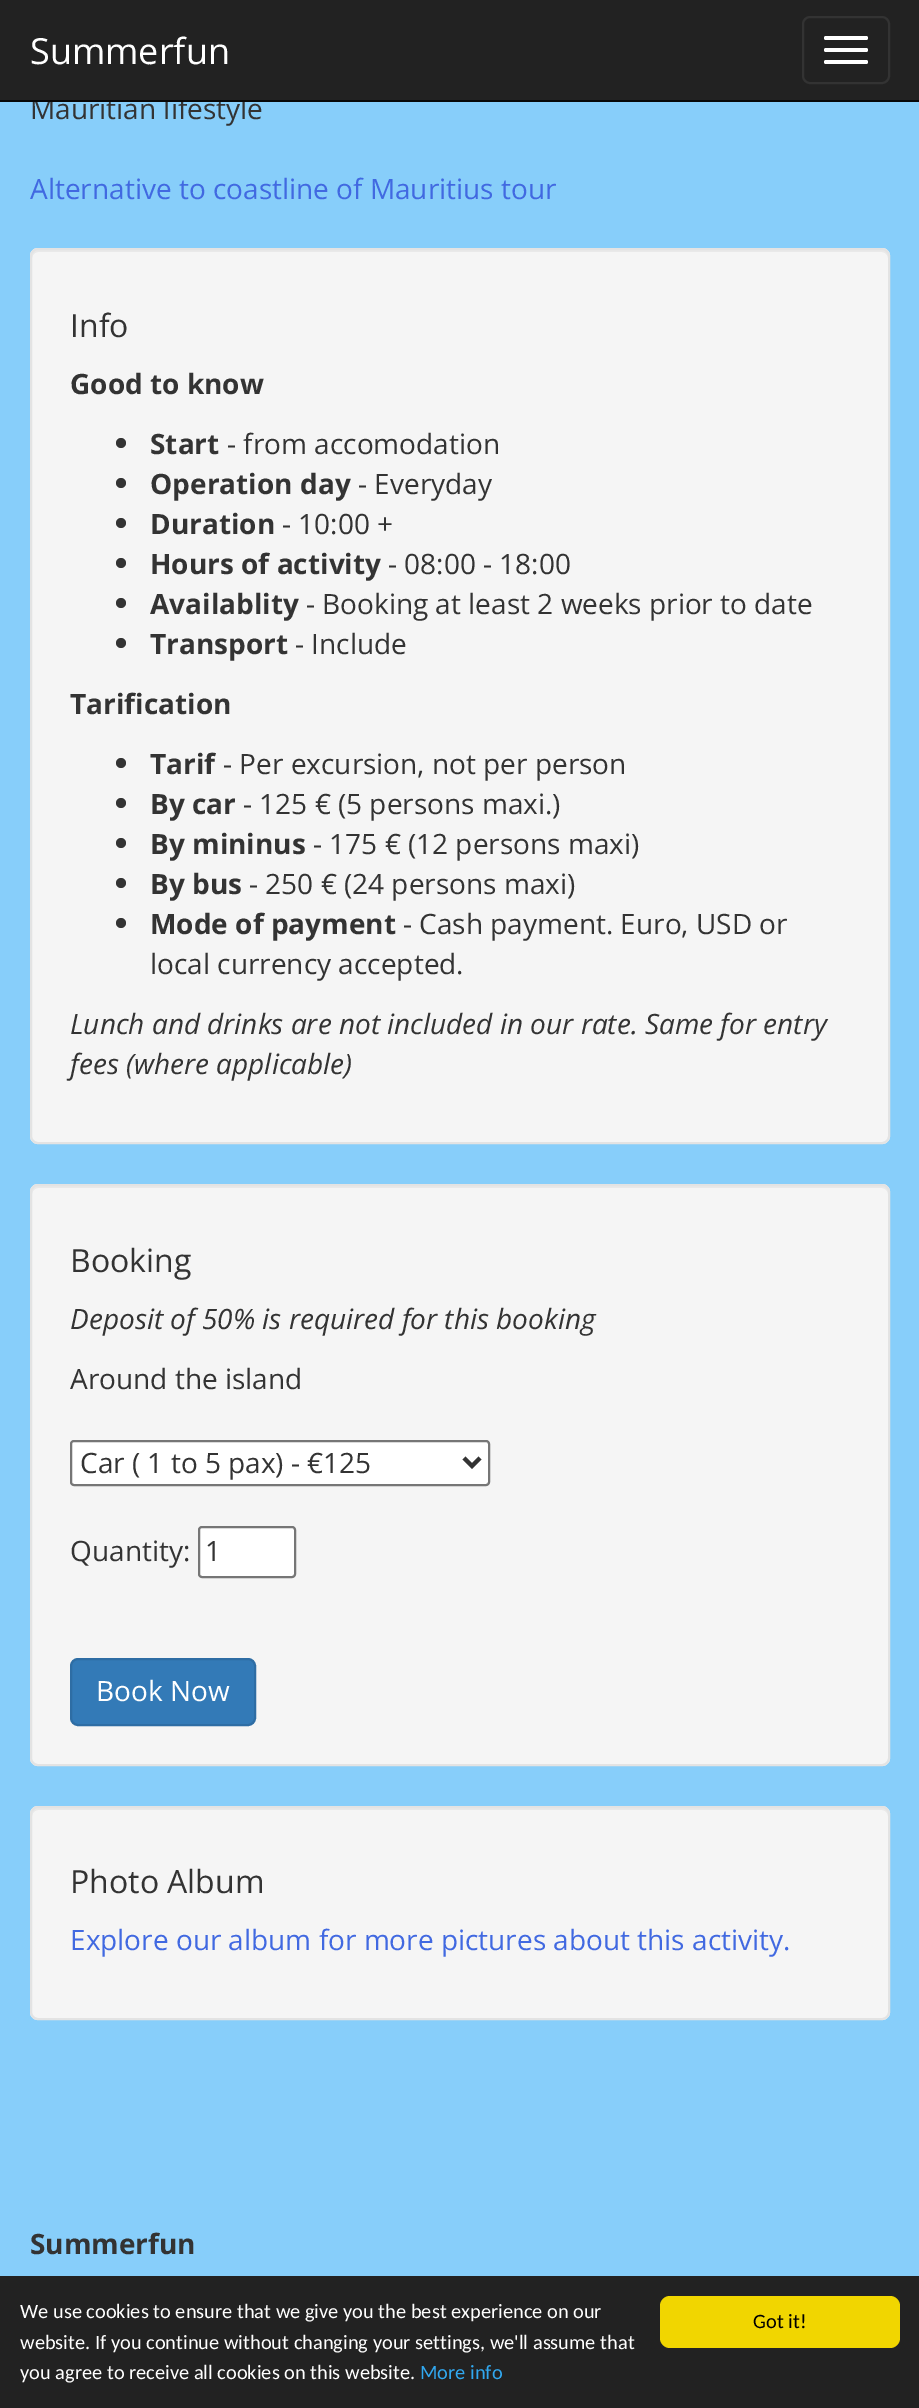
%!PS
<< /PageSize [919 2408] >> setpagedevice
/m/moveto load def
/l/rlineto load def
/c/rcurveto load def
/z/closepath load def
/f/fill load def
/s/stroke load def
/q/gsave load def
/Q_/grestore load def
/w/setlinewidth load def
/C { dup -16 bitshift 255 div exch dup -8 bitshift 255 and 255 div exch 255 and 255 div setrgbcolor } def
/F { [ exch dup neg 0 0 3 -1 roll 0 0 ] selectfont } def
/T { moveto show } def
/R { rectfill } def
/O { newpath 0 360 arc closepath } def
/Q { 5 dict begin { /r /h /w /y /x } { exch def } forall
  x r add y moveto x w add y 2 copy h add r arct x w add y h add x 1 index r arct
  x y h add x y r arct x y 2 copy exch w add exch r arct closepath end } def
0 2408 translate 1 -1 scale
4 setmiterlimit
16#87CEFA C
0 0 919 2408 R
/OpenSans-Regular 28 F
16#333333 C
(Mauritian lifestyle) 30 119 T
16#222222 C
0 0 919 100 R
16#080808 C
0 100 919 2 R
/OpenSans-Regular 36 F
16#FFFFFF C
(Summerfun) 30 64 T
16#333333 C
2 w
803 17 86 66 7 Q s
16#FFFFFF C
824 36 44 4 2 Q f
824 48 44 4 2 Q f
824 60 44 4 2 Q f
/OpenSans-Regular 28 F
16#4169E1 C
(Alternative to coastline of Mauritius tour) 30 199 T
16#F5F5F5 C
30 248 860 896 8 Q f
16#E9E9E9 C
38 252 m 844 0 l 3 0 6 3 6 6 c 0 -4 -1 -8 -6 -8 c -844 0 l -5 0 -6 4 -6 8 c 0 -3 3 -6 6 -6 c z f
16#E3E3E3 C
31 249 858 894 7 Q s
/OpenSans-Regular 32 F
16#333333 C
(Info) 70 337 T
/OpenSans-Bold 28 F
(Good to know) 70 394 T
121 443 5 O f
(Start) 150 454 T
/OpenSans-Regular 28 F
(- from accomodation) 227 454 T
121 483 5 O f
/OpenSans-Bold 28 F
(Operation day) 150 494 T
/OpenSans-Regular 28 F
(- Everyday) 358 494 T
121 523 5 O f
/OpenSans-Bold 28 F
(Duration) 150 534 T
/OpenSans-Regular 28 F
(- 10:00 +) 282 534 T
121 563 5 O f
/OpenSans-Bold 28 F
(Hours of activity) 150 574 T
/OpenSans-Regular 28 F
(- 08:00 - 18:00) 388 574 T
121 603 5 O f
/OpenSans-Bold 28 F
(Availablity) 150 614 T
/OpenSans-Regular 28 F
(- Booking at least 2 weeks prior to date) 306 614 T
121 643 5 O f
/OpenSans-Bold 28 F
(Transport) 150 654 T
/OpenSans-Regular 28 F
(- Include) 295 654 T
/OpenSans-Bold 28 F
(Tarification) 70 714 T
121 763 5 O f
(Tarif) 150 774 T
/OpenSans-Regular 28 F
(- Per excursion, not per person) 223 774 T
121 803 5 O f
/OpenSans-Bold 28 F
(By car) 150 814 T
/OpenSans-Regular 28 F
(- 125 € \(5 persons maxi.\)) 243 814 T
121 843 5 O f
/OpenSans-Bold 28 F
(By mininus) 150 854 T
/OpenSans-Regular 28 F
(- 175 € \(12 persons maxi\)) 313 854 T
121 883 5 O f
/OpenSans-Bold 28 F
(By bus) 150 894 T
/OpenSans-Regular 28 F
(- 250 € \(24 persons maxi\)) 249 894 T
121 923 5 O f
/OpenSans-Bold 28 F
(Mode of payment) 150 934 T
/OpenSans-Regular 28 F
(- Cash payment. Euro, USD or) 403 934 T
(local currency accepted.) 150 974 T
/OpenSans-Italic 28 F
(Lunch and drinks are not included in our rate. Same for entry) 70 1034 T
(fees \(where applicable\)) 70 1074 T
16#F5F5F5 C
30 1184 860 582 8 Q f
16#E9E9E9 C
38 1188 m 844 0 l 3 0 6 3 6 6 c 0 -4 -1 -8 -6 -8 c -844 0 l -5 0 -6 4 -6 8 c 0 -3 3 -6 6 -6 c z f
16#E3E3E3 C
31 1185 858 580 7 Q s
/OpenSans-Regular 32 F
16#333333 C
(Booking) 70 1272 T
/OpenSans-Italic 28 F
(Deposit of 50% is required for this booking) 70 1329 T
/OpenSans-Regular 28 F
(Around the island) 70 1389 T
16#FFFFFF C
71 1441 418 44 3 Q q f Q_
16#767676 C
s
16#333333 C
4 w
464 1458 m 8 8 l 8 -8 l s
(Car \( 1 to 5 pax\) - €125) 80 1473 T
(Quantity:) 70 1561 T
16#FFFFFF C
199 1527 96 50 3 Q q f Q_
16#767676 C
2 w
s
16#333333 C
(1) 205 1561 T
16#337AB7 C
71 1659 184 66 7 Q q f Q_
16#2E6DA4 C
s
16#FFFFFF C
(Book Now) 96 1701 T
16#F5F5F5 C
30 1806 860 214 8 Q f
16#E9E9E9 C
38 1810 m 844 0 l 3 0 6 3 6 6 c 0 -4 -1 -8 -6 -8 c -844 0 l -5 0 -6 4 -6 8 c 0 -3 3 -6 6 -6 c z f
16#E3E3E3 C
31 1807 858 212 7 Q s
/OpenSans-Regular 32 F
16#333333 C
(Photo Album) 70 1893 T
/OpenSans-Regular 28 F
16#4169E1 C
(Explore our album for more pictures about this activity.) 70 1950 T
/OpenSans-Bold 28 F
16#333333 C
(Summerfun) 30 2254 T
16#222222 C
0 2276 919 132 R
/Carlito-Regular 20.4 F
16#FFFFFF C
(We use cookies to ensure that we give you the best experience on our) 20 2318 T
(website. If you continue without changing your settings, we'll assume that) 20 2349 T
(you agree to receive all cookies on this website.) 20 2379 T
16#31A8F0 C
(More info) 420 2379 T
16#F1D600 C
660 2296 240 52 10 Q f
16#000000 C
(Got it!) 753 2328 T
showpage
